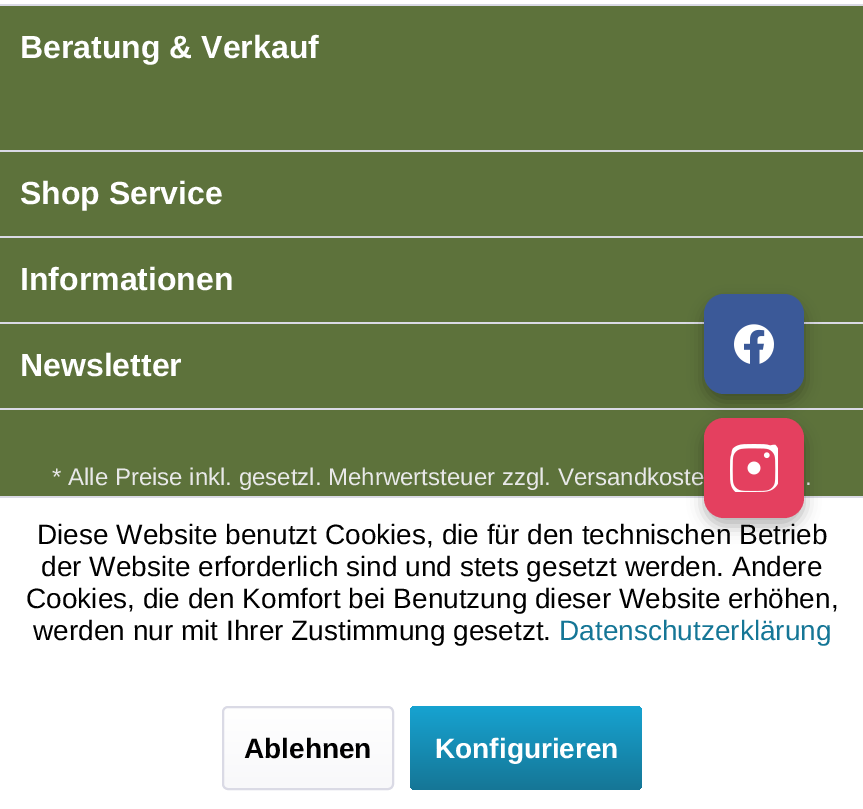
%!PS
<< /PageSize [863 809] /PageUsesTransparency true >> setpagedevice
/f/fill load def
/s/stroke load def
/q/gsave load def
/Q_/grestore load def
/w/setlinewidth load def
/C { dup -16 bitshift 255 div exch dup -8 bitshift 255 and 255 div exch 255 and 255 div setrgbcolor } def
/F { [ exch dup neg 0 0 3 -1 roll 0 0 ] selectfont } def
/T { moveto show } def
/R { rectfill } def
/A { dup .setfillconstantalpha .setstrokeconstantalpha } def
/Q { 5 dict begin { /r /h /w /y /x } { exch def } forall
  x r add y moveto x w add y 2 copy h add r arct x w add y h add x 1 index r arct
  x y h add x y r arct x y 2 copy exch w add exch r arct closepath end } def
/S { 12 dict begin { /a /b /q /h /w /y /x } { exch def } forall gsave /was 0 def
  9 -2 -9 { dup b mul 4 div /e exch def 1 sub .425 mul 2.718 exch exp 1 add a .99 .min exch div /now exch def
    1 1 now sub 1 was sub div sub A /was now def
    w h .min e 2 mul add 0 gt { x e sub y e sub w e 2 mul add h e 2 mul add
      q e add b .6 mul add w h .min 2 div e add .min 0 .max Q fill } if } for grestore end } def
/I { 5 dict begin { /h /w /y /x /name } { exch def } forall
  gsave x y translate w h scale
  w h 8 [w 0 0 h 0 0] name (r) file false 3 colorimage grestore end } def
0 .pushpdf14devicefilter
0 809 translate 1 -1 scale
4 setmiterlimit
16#FFFFFF C
0 0 863 809 R
16#5D723B C
0 6 863 490 R
16#DADAE5 C
0 4 863 2 R
/LiberationSans-Bold 32 F
16#FFFFFF C
(Beratung & Verkauf) 20 58 T
16#DADAE5 C
0 150 863 2 R
16#FFFFFF C
(Shop Service) 20 204 T
16#DADAE5 C
0 236 863 2 R
16#FFFFFF C
(Informationen) 20 290 T
16#DADAE5 C
0 322 863 2 R
0 408 863 2 R
16#FFFFFF C
(Newsletter) 20 376 T
/LiberationSans-Regular 24 F
16#E8E8E8 C
(* Alle Preise inkl. gesetzl. Mehrwertsteuer zzgl. Versandkoste) 52 485 T
(.) 805 485 T
16#000000 C
704 302 100 100 20 8 .3 S
16#3B5998 C
704 294 100 100 20 Q f
(1.rgb) 734 324 40 40 I
16#DADAE5 C
0 496 863 2 R
16#000000 C
704 426 100 100 20 8 .3 S
16#E4405F C
704 418 100 100 20 Q f
(2.rgb) 730 444 48 48 I
/LiberationSans-Regular 28 F
16#000000 C
(Diese Website benutzt Cookies, die für den technischen Betrieb) 37 544 T
(der Website erforderlich sind und stets gesetzt werden. Andere) 41 576 T
(Cookies, die den Komfort bei Benutzung dieser Website erhöhen,) 26 608 T
(werden nur mit Ihrer Zustimmung gesetzt.) 33 640 T
16#157696 C
(Datenschutzerklärung) 559 640 T
q 224 708 168 80 4 Q clip newpath
<< /ShadingType 2 /ColorSpace /DeviceRGB /Coords [308 708 308 788] /Extend [true true] /Function << /FunctionType 2 /Domain [0 1] /C0 [1 1 1] /C1 [.973 .973 .98] /N 1 >> >> shfill Q_
16#DADAE5 C
2 w
223 707 170 82 5 Q s
/LiberationSans-Bold 28 F
16#000000 C
(Ablehnen) 244 758 T
q 410 706 232 84 6 Q clip newpath
<< /ShadingType 2 /ColorSpace /DeviceRGB /Coords [526 706 526 790] /Extend [true true] /Function << /FunctionType 2 /Domain [0 1] /C0 [.09 .639 .82] /C1 [.082 .463 .588] /N 1 >> >> shfill Q_
16#FFFFFF C
(Konfigurieren) 435 758 T
.poppdf14devicefilter showpage
